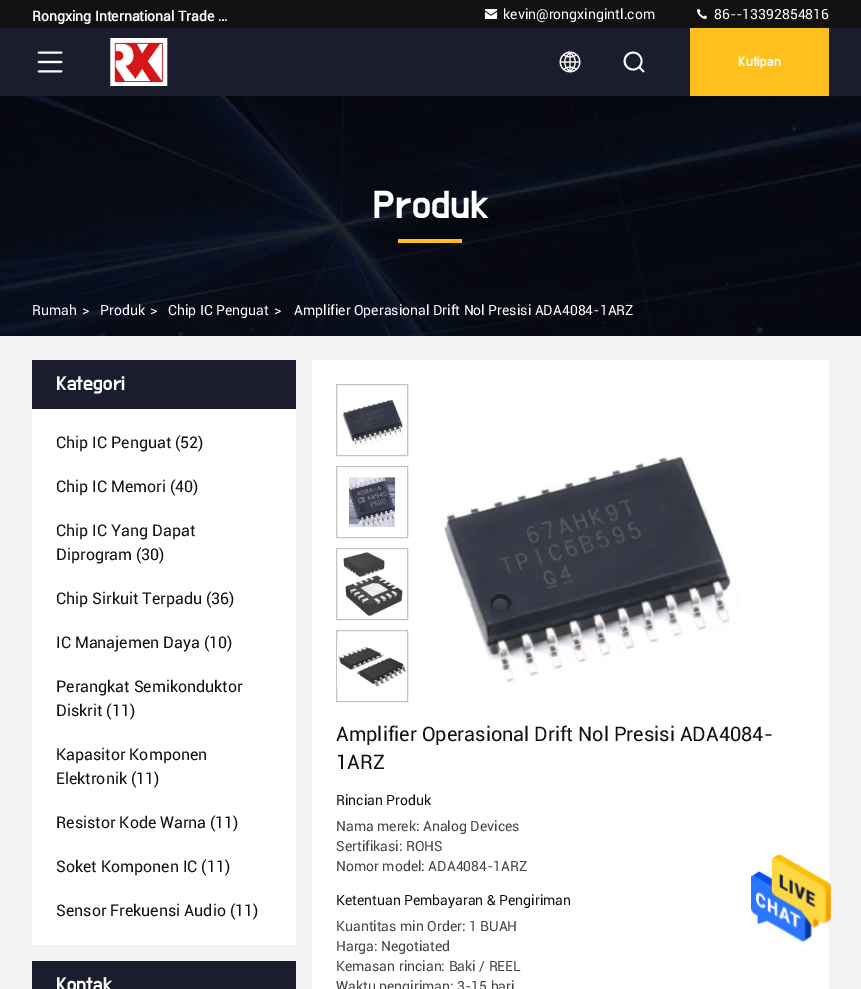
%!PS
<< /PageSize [861 989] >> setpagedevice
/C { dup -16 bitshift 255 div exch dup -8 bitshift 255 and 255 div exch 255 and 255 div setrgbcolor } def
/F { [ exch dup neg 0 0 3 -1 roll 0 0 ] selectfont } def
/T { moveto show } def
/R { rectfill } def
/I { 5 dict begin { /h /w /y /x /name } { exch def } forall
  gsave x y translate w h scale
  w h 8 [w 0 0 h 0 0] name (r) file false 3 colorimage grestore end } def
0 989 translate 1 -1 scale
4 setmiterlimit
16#F3F3F3 C
0 0 861 989 R
16#111111 C
0 0 861 28 R
/Roboto-Bold 14 F
16#FFFFFF C
(Rongxing International Trade …) 32 21 T
(1.rgb) 484 9 14 10 I
/Roboto-Regular 14 F
(kevin@rongxingintl.com) 503 19 T
(2.rgb) 697 9 10 10 I
(86--13392854816) 714 19 T
16#1B1D2E C
0 28 861 68 R
(3.rgb) 37 51 26 22 I
(4.rgb) 110 38 58 48 I
(5.rgb) 559 51 22 22 I
(6.rgb) 623 51 22 22 I
16#FFC01E C
690 28 139 68 R
/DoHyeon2-Regular 14 F
16#FFFFFF C
(Kutipan) 738 66 T
(7.rgb) 0 96 861 240 I
/DoHyeon2-Regular 40 F
(Produk) 373 218 T
16#FFC01E C
398 239 64 4 R
/Roboto-Regular 14 F
16#FFFFFF C
(Rumah) 32 315 T
(>) 82 315 T
(Produk) 100 315 T
(>) 150 315 T
(Chip IC Penguat) 168 315 T
(>) 274 315 T
(Amplifier Operasional Drift Nol Presisi ADA4084-1ARZ) 294 315 T
16#1B1D2E C
32 360 264 49 R
/DoHyeon-Regular 20 F
16#FFFFFF C
(Kategori) 56 390 T
32 409 264 536 R
/Roboto-Regular 16 F
16#111111 C
(Chip IC Penguat \(52\)) 56 448 T
(Chip IC Memori \(40\)) 56 492 T
(Chip IC Yang Dapat) 56 536 T
(Diprogram \(30\)) 56 560 T
(Chip Sirkuit Terpadu \(36\)) 56 604 T
(IC Manajemen Daya \(10\)) 56 648 T
(Perangkat Semikonduktor) 56 692 T
(Diskrit \(11\)) 56 716 T
(Kapasitor Komponen) 56 760 T
(Elektronik \(11\)) 56 784 T
(Resistor Kode Warna \(11\)) 56 828 T
(Soket Komponen IC \(11\)) 56 872 T
(Sensor Frekuensi Audio \(11\)) 56 916 T
16#1B1D2E C
32 961 264 28 R
/DoHyeon-Regular 20 F
16#FFFFFF C
(Kontak) 56 991 T
312 360 517 629 R
16#C4C4C4 C
336.5 384.5 71 71 rectstroke
(8.rgb) 342 400 61 47 I
336.5 466.5 71 71 rectstroke
(9.rgb) 349 477 47 50 I
336.5 548.5 71 71 rectstroke
(10.rgb) 343 552 60 65 I
336.5 630.5 71 71 rectstroke
(11.rgb) 337 646 70 41 I
(12.rgb) 444 456 297 227 I
/Roboto-Regular 20 F
16#111111 C
(Amplifier Operasional Drift Nol Presisi ADA4084-) 336 741 T
(1ARZ) 336 769 T
/Roboto-Regular 14 F
(Rincian Produk) 336 805 T
16#444444 C
(Nama merek: Analog Devices) 336 831 T
(Sertifikasi: ROHS) 336 851 T
(Nomor model: ADA4084-1ARZ) 336 871 T
16#111111 C
(Ketentuan Pembayaran & Pengiriman) 336 905 T
16#444444 C
(Kuantitas min Order: 1 BUAH) 336 931 T
(Harga: Negotiated) 336 951 T
(Kemasan rincian: Baki / REEL) 336 971 T
(Waktu pengiriman: 3-15 hari) 336 991 T
(13.rgb) 751 854 80 89 I
showpage
